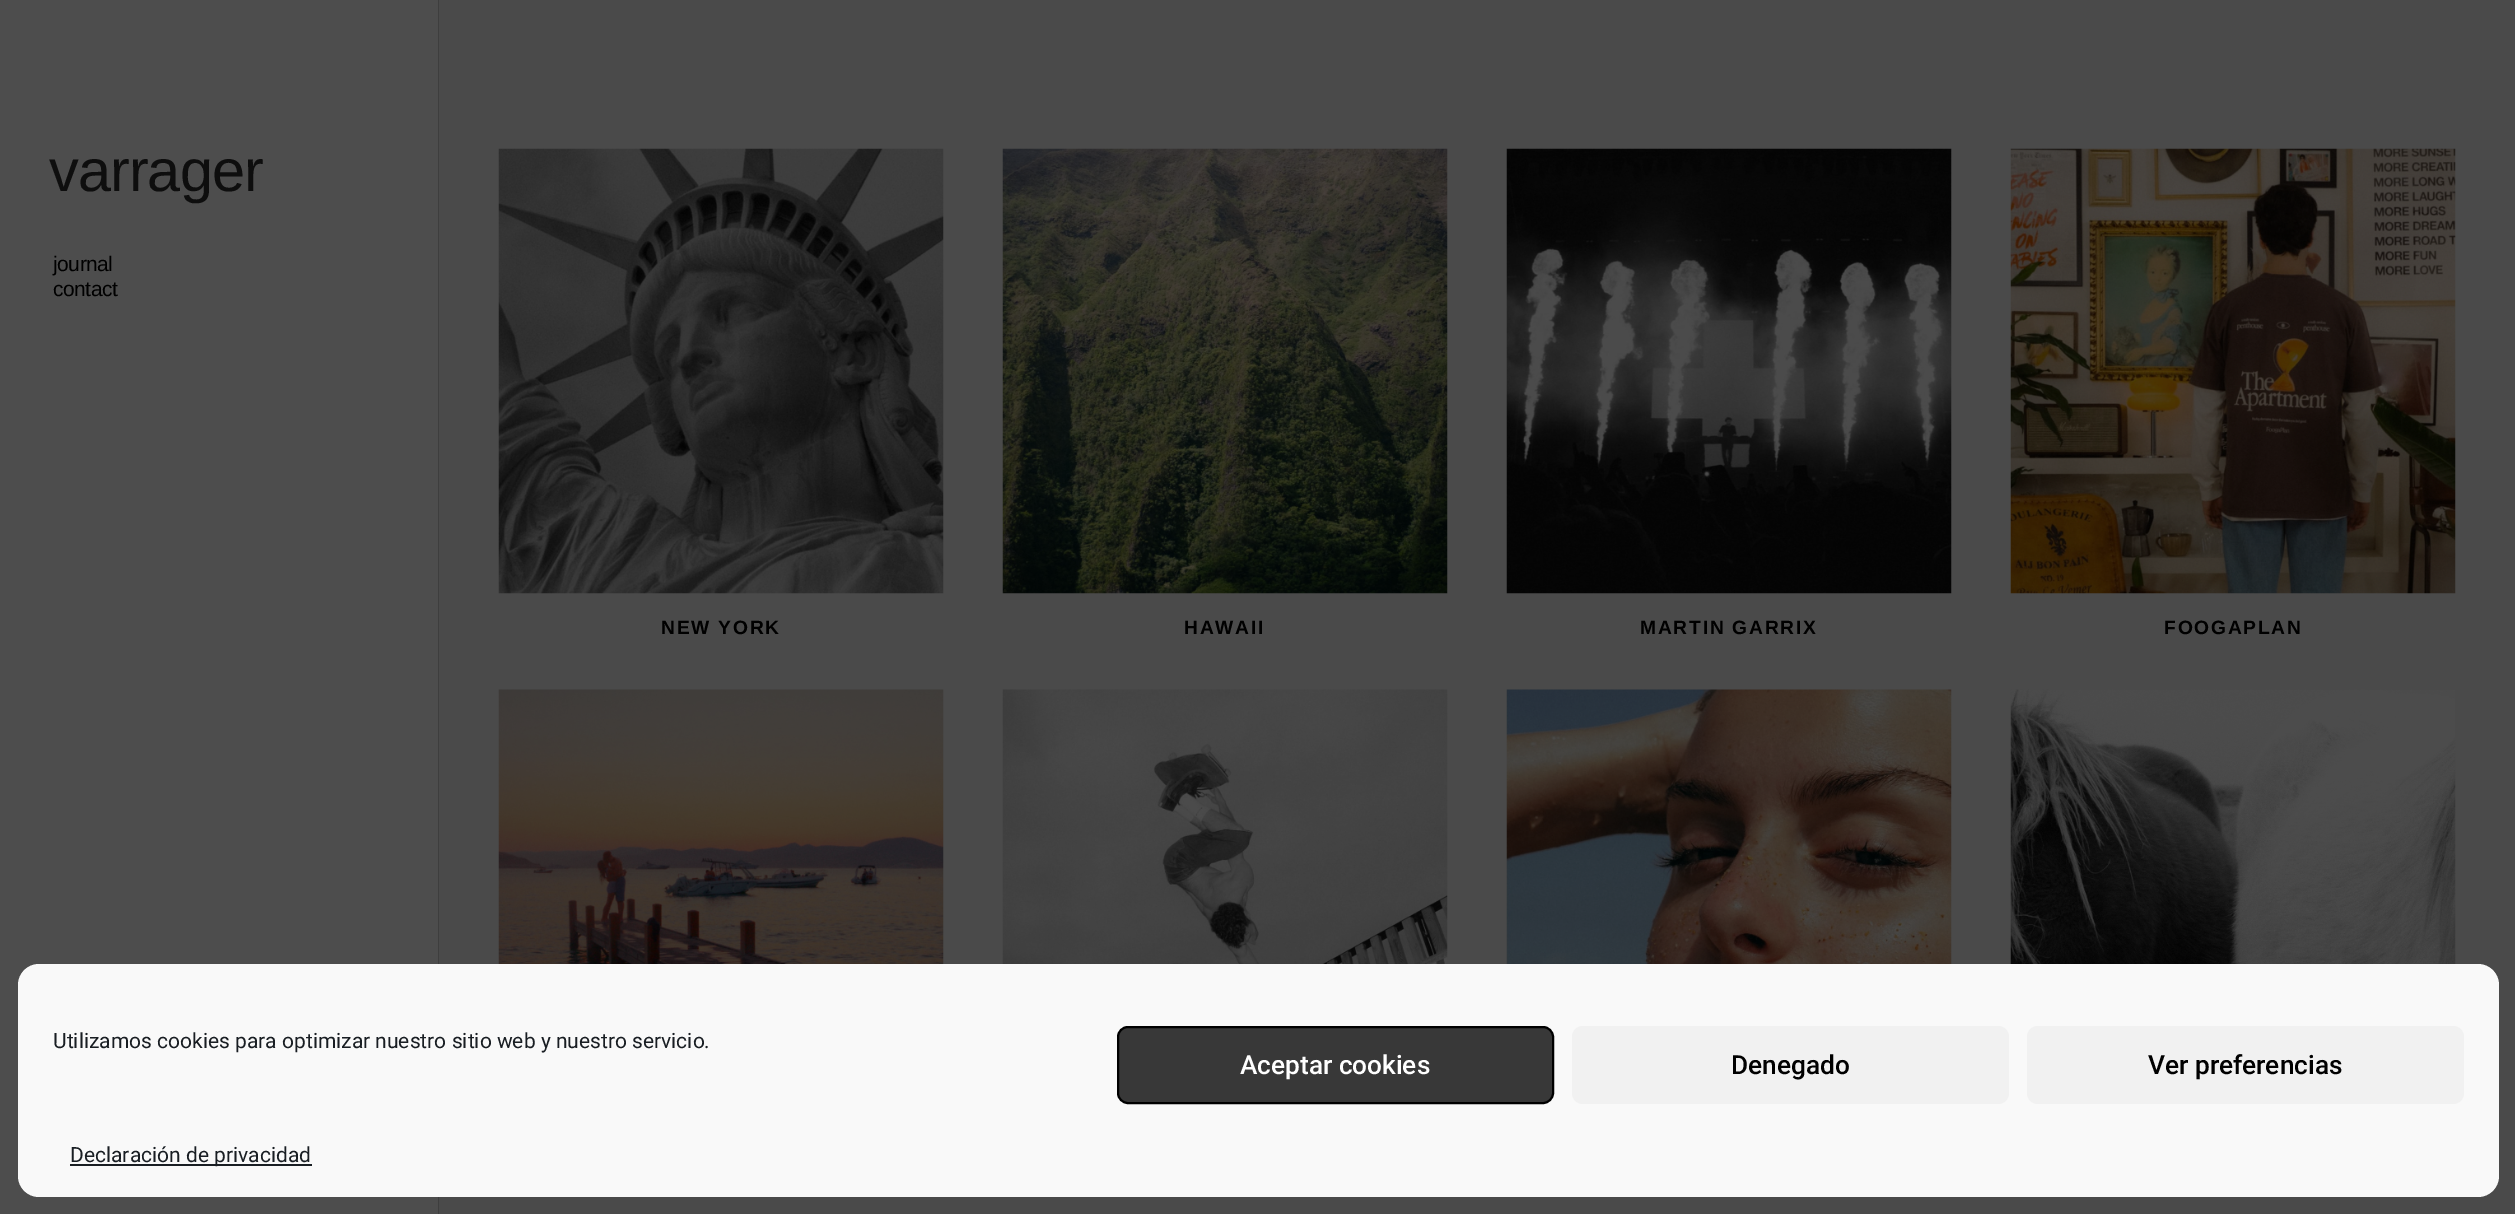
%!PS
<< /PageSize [2515 1214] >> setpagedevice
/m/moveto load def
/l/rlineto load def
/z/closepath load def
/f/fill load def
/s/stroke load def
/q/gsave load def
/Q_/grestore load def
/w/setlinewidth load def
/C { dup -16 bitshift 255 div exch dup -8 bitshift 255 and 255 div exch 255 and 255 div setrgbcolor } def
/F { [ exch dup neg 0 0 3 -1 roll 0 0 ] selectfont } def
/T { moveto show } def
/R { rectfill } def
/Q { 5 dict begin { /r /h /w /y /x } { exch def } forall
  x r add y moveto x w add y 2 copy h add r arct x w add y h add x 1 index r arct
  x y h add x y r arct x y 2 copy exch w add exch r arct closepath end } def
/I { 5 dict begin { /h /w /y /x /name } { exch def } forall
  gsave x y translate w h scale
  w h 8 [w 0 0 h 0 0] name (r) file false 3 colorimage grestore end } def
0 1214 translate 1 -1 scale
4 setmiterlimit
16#4A4A4A C
0 0 2515 1214 R
16#4D4D4D C
0 0 438 1214 R
16#3E3E3E C
2 1214 m 0 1 l 437 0 l 0 -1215 l -1 0 l 0 1214 l z f
/LiberationSans-Regular 59.5 F
16#0E0E0E C
49 191 m -1 0 (varrager) ashow
/LiberationSans-Regular 21 F
16#000000 C
53 271 m -.5 0 (journal) ashow
53 296 m -.5 0 (contact) ashow
(1.rgb) 498 148 446 446 I
/LiberationSans-Bold 19.25 F
661 634 m 1.75 0 (NEW YORK) ashow
(2.rgb) 1002 148 446 446 I
1184 634 m 1.75 0 (HAWAII) ashow
(3.rgb) 1506 148 446 446 I
1640 634 m 1.75 0 (MARTIN GARRIX) ashow
(4.rgb) 2010 148 446 446 I
2164 634 m 1.75 0 (FOOGAPLAN) ashow
(5.rgb) 498 689 446 275 I
(6.rgb) 1002 689 446 275 I
(7.rgb) 1506 689 446 275 I
(8.rgb) 2010 689 446 275 I
16#F9F9F9 C
18 964 2481 233 21 Q f
/Roboto-Regular 21 F
16#191E23 C
(Utilizamos cookies para optimizar nuestro sitio web y nuestro servicio.) 53 1048 T
16#383838 C
1118 1027 435 76 10 Q q f Q_
16#000000 C
2 w
s
/Roboto-Medium 26.25 F
16#FFFFFF C
(Aceptar cookies) 1240 1074 T
16#F1F1F1 C
1572 1026 437 78 11 Q f
16#000000 C
(Denegado) 1731 1074 T
16#F1F1F1 C
2027 1026 437 78 11 Q f
16#000000 C
(Ver preferencias) 2148 1074 T
16#191E23 C
70 1164 242 2 R
/Roboto-Regular 21 F
(Declaración de privacidad) 70 1162 T
showpage
